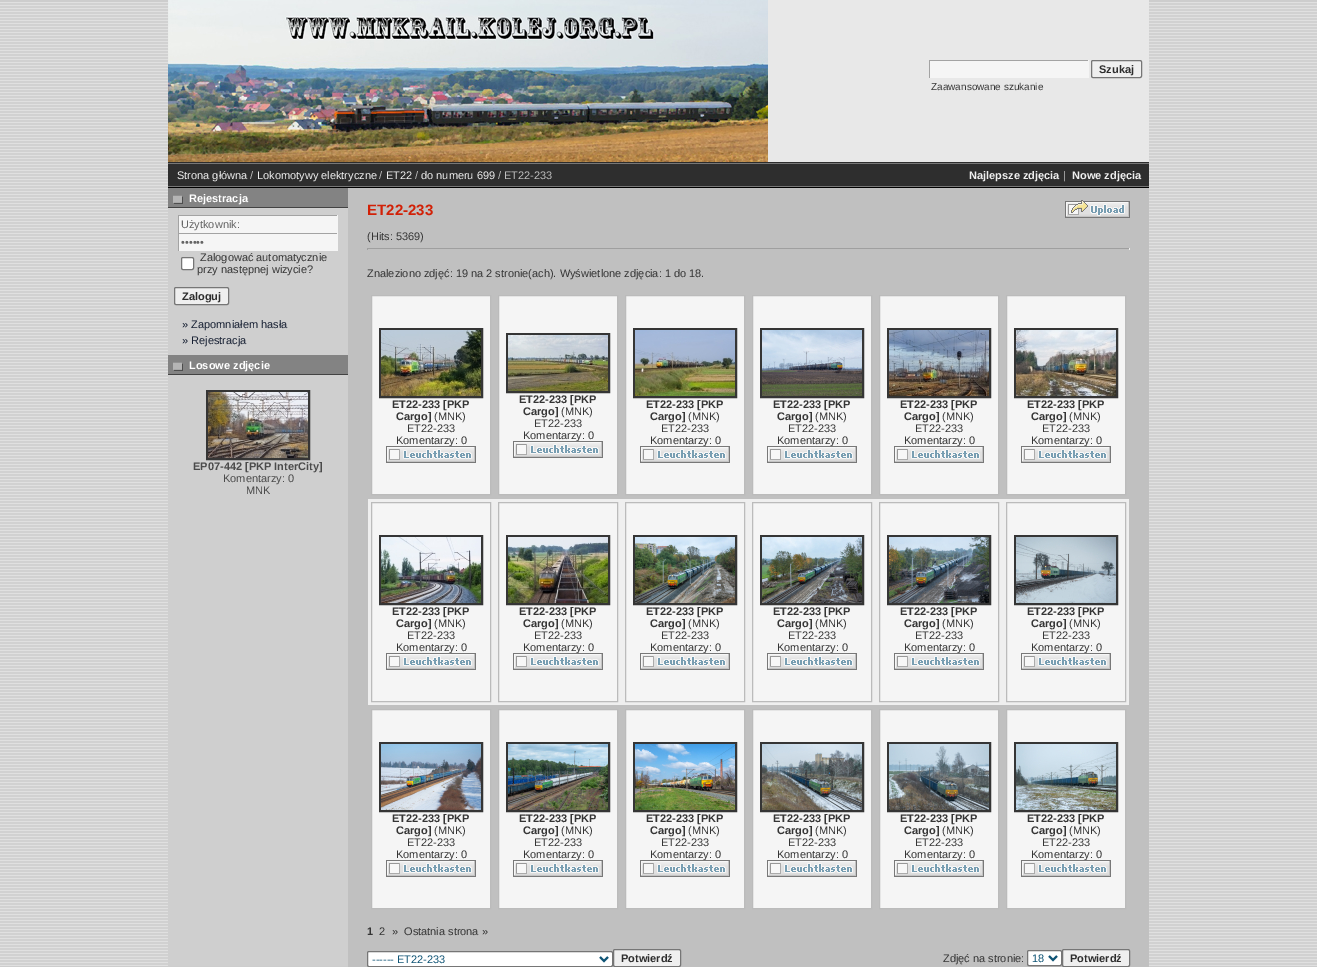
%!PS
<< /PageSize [1317 967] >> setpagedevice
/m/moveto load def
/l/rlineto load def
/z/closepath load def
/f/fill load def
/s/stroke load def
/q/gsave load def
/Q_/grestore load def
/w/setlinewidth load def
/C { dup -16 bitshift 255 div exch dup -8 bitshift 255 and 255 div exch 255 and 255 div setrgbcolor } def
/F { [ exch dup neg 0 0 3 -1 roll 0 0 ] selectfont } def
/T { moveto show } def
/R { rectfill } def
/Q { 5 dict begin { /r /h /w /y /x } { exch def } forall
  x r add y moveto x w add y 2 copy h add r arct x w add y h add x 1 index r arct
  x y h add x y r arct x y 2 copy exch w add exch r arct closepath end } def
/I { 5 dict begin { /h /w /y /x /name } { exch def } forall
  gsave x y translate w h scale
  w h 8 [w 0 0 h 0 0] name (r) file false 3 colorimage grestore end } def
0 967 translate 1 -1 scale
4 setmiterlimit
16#CDCDCD C
0 0 1317 967 R
(1.rgb) 0 2 1317 964 I
16#E8E8E8 C
768 0 381 162 R
16#2D2D2D C
168 162 981 1 R
(2.rgb) 168 0 600 162 I
16#F5F5F5 C
930 61 158 17 R
16#A3A3A3 C
929 60 160 1 R
16#F5F5F5 C
1088 60 1 18 R
16#A3A3A3 C
929 60 1 18 R
16#EFEFEF C
1091.5 60.5 50 17 1.5 Q q f Q_
16#767676 C
s
/LiberationSans-Bold 11 F
16#2D2D2D C
(Szukaj) 1099 73 T
/LiberationSans-Regular 10 F
16#353535 C
(Zaawansowane szukanie) 931 90 T
16#C0C0C0 C
348 188 801 779 R
16#2E2E2E C
168 164 981 22 R
16#777777 C
168 163 981 1 R
168 186 981 1 R
/LiberationSans-Regular 11 F
16#EFEFEF C
(Strona główna) 177 179 T
16#C0C0C0 C
(/) 250 179 T
16#EFEFEF C
(Lokomotywy elektryczne) 257 179 T
16#C0C0C0 C
(/) 379 179 T
16#EFEFEF C
(ET22) 386 179 T
16#C0C0C0 C
(/) 415 179 T
16#EFEFEF C
(do numeru 699) 421 179 T
16#C0C0C0 C
(/ ET22-233) 498 179 T
/LiberationSans-Bold 11 F
16#EFEFEF C
(Najlepsze zdjęcia) 969 179 T
/LiberationSans-Regular 11 F
16#C0C0C0 C
(|) 1063 179 T
/LiberationSans-Bold 11 F
16#EFEFEF C
(Nowe zdjęcia) 1072 179 T
16#000000 C
168 187 981 1 R
16#CFCFCF C
168 209 180 757 R
16#838383 C
168 188 180 19 R
(3.rgb) 173 195 10 9 I
16#434343 C
168 207 180 1 R
16#FFFFFF C
(Rejestracja) 189 202 T
16#F5F5F5 C
179 216 158 17 R
16#A3A3A3 C
178 215 160 1 R
16#F5F5F5 C
337 215 1 18 R
16#A3A3A3 C
178 215 1 18 R
/LiberationSans-Regular 11 F
16#646464 C
(Użytkownik:) 181 228 T
16#F5F5F5 C
179 234 158 17 R
16#A3A3A3 C
178 233 160 1 R
16#F5F5F5 C
337 233 1 18 R
16#A3A3A3 C
178 233 1 18 R
16#646464 C
(••••••) 181 246 T
16#FFFFFF C
181.5 257.5 12 12 1.5 Q q f Q_
16#767676 C
s
16#353535 C
(Zalogować automatycznie) 200 261 T
(przy następnej wizycie?) 197 273 T
16#EFEFEF C
174.5 287.5 54 17 1.5 Q q f Q_
16#767676 C
s
/LiberationSans-Bold 11 F
16#2D2D2D C
(Zaloguj) 182 300 T
/LiberationSans-Regular 11 F
16#172033 C
(» Zapomniałem hasła) 182 328 T
(» Rejestracja) 182 344 T
16#838383 C
168 355 180 19 R
(4.rgb) 173 362 10 9 I
16#434343 C
168 374 180 1 R
/LiberationSans-Bold 11 F
16#FFFFFF C
(Losowe zdjęcie) 189 369 T
16#353535 C
2 w
207 391 102 68 rectstroke
(5.rgb) 208 392 100 66 I
16#4B4B4B C
(EP07-442 [PKP InterCity]) 193 470 T
/LiberationSans-Regular 11 F
(Komentarzy: 0) 223 482 T
(MNK) 246 494 T
/LiberationSans-Bold 15 F
16#D22006 C
(ET22-233) 367 215 T
(6.rgb) 1065 200 65 18 I
/LiberationSans-Regular 11 F
16#353535 C
(\(Hits: 5369\)) 367 240 T
16#9F9F9F C
367 248 763 1 R
16#EEEEEE C
1129 248 1 2 R
16#9F9F9F C
367 248 1 2 R
16#353535 C
(Znaleziono zdjęć: 19 na 2 stronie\(ach\). Wyświetlone zdjęcia: 1 do 18.) 367 277 T
16#F5F5F5 C
371.5 295.5 m 119 0 l 0 199 l -119 0 l z q f Q_
16#BBBBBB C
1 w
s
16#353535 C
2 w
380 329 102 68 rectstroke
(7.rgb) 381 330 100 66 I
/LiberationSans-Bold 11 F
(ET22-233 [PKP) 392 408 T
(Cargo]) 396 420 T
/LiberationSans-Regular 11 F
(\() 434 420 T
(MNK) 438 420 T
(\)) 462 420 T
(ET22-233) 407 432 T
(Komentarzy: 0) 396 444 T
(8.rgb) 386 446 90 17 I
16#F5F5F5 C
498.5 295.5 m 119 0 l 0 199 l -119 0 l z q f Q_
16#BBBBBB C
1 w
s
16#353535 C
2 w
507 334 102 58 rectstroke
(9.rgb) 508 335 100 56 I
/LiberationSans-Bold 11 F
(ET22-233 [PKP) 519 403 T
(Cargo]) 523 415 T
/LiberationSans-Regular 11 F
(\() 561 415 T
(MNK) 565 415 T
(\)) 589 415 T
(ET22-233) 534 427 T
(Komentarzy: 0) 523 439 T
(8.rgb) 513 441 90 17 I
16#F5F5F5 C
625.5 295.5 m 119 0 l 0 199 l -119 0 l z q f Q_
16#BBBBBB C
1 w
s
16#353535 C
2 w
634 329 102 68 rectstroke
(10.rgb) 635 330 100 66 I
/LiberationSans-Bold 11 F
(ET22-233 [PKP) 646 408 T
(Cargo]) 650 420 T
/LiberationSans-Regular 11 F
(\() 688 420 T
(MNK) 692 420 T
(\)) 716 420 T
(ET22-233) 661 432 T
(Komentarzy: 0) 650 444 T
(8.rgb) 640 446 90 17 I
16#F5F5F5 C
752.5 295.5 m 119 0 l 0 199 l -119 0 l z q f Q_
16#BBBBBB C
1 w
s
16#353535 C
2 w
761 329 102 68 rectstroke
(11.rgb) 762 330 100 66 I
/LiberationSans-Bold 11 F
(ET22-233 [PKP) 773 408 T
(Cargo]) 777 420 T
/LiberationSans-Regular 11 F
(\() 815 420 T
(MNK) 819 420 T
(\)) 843 420 T
(ET22-233) 788 432 T
(Komentarzy: 0) 777 444 T
(8.rgb) 767 446 90 17 I
16#F5F5F5 C
879.5 295.5 m 119 0 l 0 199 l -119 0 l z q f Q_
16#BBBBBB C
1 w
s
16#353535 C
2 w
888 329 102 68 rectstroke
(12.rgb) 889 330 100 66 I
/LiberationSans-Bold 11 F
(ET22-233 [PKP) 900 408 T
(Cargo]) 904 420 T
/LiberationSans-Regular 11 F
(\() 942 420 T
(MNK) 946 420 T
(\)) 970 420 T
(ET22-233) 915 432 T
(Komentarzy: 0) 904 444 T
(8.rgb) 894 446 90 17 I
16#F5F5F5 C
1006.5 295.5 m 119 0 l 0 199 l -119 0 l z q f Q_
16#BBBBBB C
1 w
s
16#353535 C
2 w
1015 329 102 68 rectstroke
(13.rgb) 1016 330 100 66 I
/LiberationSans-Bold 11 F
(ET22-233 [PKP) 1027 408 T
(Cargo]) 1031 420 T
/LiberationSans-Regular 11 F
(\() 1069 420 T
(MNK) 1073 420 T
(\)) 1097 420 T
(ET22-233) 1042 432 T
(Komentarzy: 0) 1031 444 T
(8.rgb) 1021 446 90 17 I
16#EFEFEF C
368 499 761 206 R
16#F5F5F5 C
371.5 502.5 m 119 0 l 0 199 l -119 0 l z q f Q_
16#BBBBBB C
1 w
s
16#353535 C
2 w
380 536 102 68 rectstroke
(14.rgb) 381 537 100 66 I
/LiberationSans-Bold 11 F
(ET22-233 [PKP) 392 615 T
(Cargo]) 396 627 T
/LiberationSans-Regular 11 F
(\() 434 627 T
(MNK) 438 627 T
(\)) 462 627 T
(ET22-233) 407 639 T
(Komentarzy: 0) 396 651 T
(8.rgb) 386 653 90 17 I
16#F5F5F5 C
498.5 502.5 m 119 0 l 0 199 l -119 0 l z q f Q_
16#BBBBBB C
1 w
s
16#353535 C
2 w
507 536 102 68 rectstroke
(15.rgb) 508 537 100 66 I
/LiberationSans-Bold 11 F
(ET22-233 [PKP) 519 615 T
(Cargo]) 523 627 T
/LiberationSans-Regular 11 F
(\() 561 627 T
(MNK) 565 627 T
(\)) 589 627 T
(ET22-233) 534 639 T
(Komentarzy: 0) 523 651 T
(8.rgb) 513 653 90 17 I
16#F5F5F5 C
625.5 502.5 m 119 0 l 0 199 l -119 0 l z q f Q_
16#BBBBBB C
1 w
s
16#353535 C
2 w
634 536 102 68 rectstroke
(16.rgb) 635 537 100 66 I
/LiberationSans-Bold 11 F
(ET22-233 [PKP) 646 615 T
(Cargo]) 650 627 T
/LiberationSans-Regular 11 F
(\() 688 627 T
(MNK) 692 627 T
(\)) 716 627 T
(ET22-233) 661 639 T
(Komentarzy: 0) 650 651 T
(8.rgb) 640 653 90 17 I
16#F5F5F5 C
752.5 502.5 m 119 0 l 0 199 l -119 0 l z q f Q_
16#BBBBBB C
1 w
s
16#353535 C
2 w
761 536 102 68 rectstroke
(17.rgb) 762 537 100 66 I
/LiberationSans-Bold 11 F
(ET22-233 [PKP) 773 615 T
(Cargo]) 777 627 T
/LiberationSans-Regular 11 F
(\() 815 627 T
(MNK) 819 627 T
(\)) 843 627 T
(ET22-233) 788 639 T
(Komentarzy: 0) 777 651 T
(8.rgb) 767 653 90 17 I
16#F5F5F5 C
879.5 502.5 m 119 0 l 0 199 l -119 0 l z q f Q_
16#BBBBBB C
1 w
s
16#353535 C
2 w
888 536 102 68 rectstroke
(18.rgb) 889 537 100 66 I
/LiberationSans-Bold 11 F
(ET22-233 [PKP) 900 615 T
(Cargo]) 904 627 T
/LiberationSans-Regular 11 F
(\() 942 627 T
(MNK) 946 627 T
(\)) 970 627 T
(ET22-233) 915 639 T
(Komentarzy: 0) 904 651 T
(8.rgb) 894 653 90 17 I
16#F5F5F5 C
1006.5 502.5 m 119 0 l 0 199 l -119 0 l z q f Q_
16#BBBBBB C
1 w
s
16#353535 C
2 w
1015 536 102 68 rectstroke
(19.rgb) 1016 537 100 66 I
/LiberationSans-Bold 11 F
(ET22-233 [PKP) 1027 615 T
(Cargo]) 1031 627 T
/LiberationSans-Regular 11 F
(\() 1069 627 T
(MNK) 1073 627 T
(\)) 1097 627 T
(ET22-233) 1042 639 T
(Komentarzy: 0) 1031 651 T
(8.rgb) 1021 653 90 17 I
16#F5F5F5 C
371.5 709.5 m 119 0 l 0 199 l -119 0 l z q f Q_
16#BBBBBB C
1 w
s
16#353535 C
2 w
380 743 102 68 rectstroke
(20.rgb) 381 744 100 66 I
/LiberationSans-Bold 11 F
(ET22-233 [PKP) 392 822 T
(Cargo]) 396 834 T
/LiberationSans-Regular 11 F
(\() 434 834 T
(MNK) 438 834 T
(\)) 462 834 T
(ET22-233) 407 846 T
(Komentarzy: 0) 396 858 T
(8.rgb) 386 860 90 17 I
16#F5F5F5 C
498.5 709.5 m 119 0 l 0 199 l -119 0 l z q f Q_
16#BBBBBB C
1 w
s
16#353535 C
2 w
507 743 102 68 rectstroke
(21.rgb) 508 744 100 66 I
/LiberationSans-Bold 11 F
(ET22-233 [PKP) 519 822 T
(Cargo]) 523 834 T
/LiberationSans-Regular 11 F
(\() 561 834 T
(MNK) 565 834 T
(\)) 589 834 T
(ET22-233) 534 846 T
(Komentarzy: 0) 523 858 T
(8.rgb) 513 860 90 17 I
16#F5F5F5 C
625.5 709.5 m 119 0 l 0 199 l -119 0 l z q f Q_
16#BBBBBB C
1 w
s
16#353535 C
2 w
634 743 102 68 rectstroke
(22.rgb) 635 744 100 66 I
/LiberationSans-Bold 11 F
(ET22-233 [PKP) 646 822 T
(Cargo]) 650 834 T
/LiberationSans-Regular 11 F
(\() 688 834 T
(MNK) 692 834 T
(\)) 716 834 T
(ET22-233) 661 846 T
(Komentarzy: 0) 650 858 T
(8.rgb) 640 860 90 17 I
16#F5F5F5 C
752.5 709.5 m 119 0 l 0 199 l -119 0 l z q f Q_
16#BBBBBB C
1 w
s
16#353535 C
2 w
761 743 102 68 rectstroke
(23.rgb) 762 744 100 66 I
/LiberationSans-Bold 11 F
(ET22-233 [PKP) 773 822 T
(Cargo]) 777 834 T
/LiberationSans-Regular 11 F
(\() 815 834 T
(MNK) 819 834 T
(\)) 843 834 T
(ET22-233) 788 846 T
(Komentarzy: 0) 777 858 T
(8.rgb) 767 860 90 17 I
16#F5F5F5 C
879.5 709.5 m 119 0 l 0 199 l -119 0 l z q f Q_
16#BBBBBB C
1 w
s
16#353535 C
2 w
888 743 102 68 rectstroke
(24.rgb) 889 744 100 66 I
/LiberationSans-Bold 11 F
(ET22-233 [PKP) 900 822 T
(Cargo]) 904 834 T
/LiberationSans-Regular 11 F
(\() 942 834 T
(MNK) 946 834 T
(\)) 970 834 T
(ET22-233) 915 846 T
(Komentarzy: 0) 904 858 T
(8.rgb) 894 860 90 17 I
16#F5F5F5 C
1006.5 709.5 m 119 0 l 0 199 l -119 0 l z q f Q_
16#BBBBBB C
1 w
s
16#353535 C
2 w
1015 743 102 68 rectstroke
(25.rgb) 1016 744 100 66 I
/LiberationSans-Bold 11 F
(ET22-233 [PKP) 1027 822 T
(Cargo]) 1031 834 T
/LiberationSans-Regular 11 F
(\() 1069 834 T
(MNK) 1073 834 T
(\)) 1097 834 T
(ET22-233) 1042 846 T
(Komentarzy: 0) 1031 858 T
(8.rgb) 1021 860 90 17 I
/LiberationSans-Bold 11 F
(1) 367 935 T
/LiberationSans-Regular 11 F
(2) 379 935 T
(») 392 935 T
(Ostatnia strona ») 404 935 T
16#FFFFFF C
367.5 951.5 245 15 1.5 Q q f Q_
16#767676 C
1 w
s
16#0F5475 C
2 w
600 957 m 4 4 l 4 -4 l s
(------ ET22-233) 372 963 T
16#EFEFEF C
613.5 949.5 67 17 1.5 Q q f Q_
16#767676 C
1 w
s
/LiberationSans-Bold 11 F
16#2D2D2D C
(Potwierdź) 621 962 T
/LiberationSans-Regular 11 F
16#353535 C
(Zdjęć na stronie:) 943 962 T
16#FFFFFF C
1027.5 950.5 34 15 1.5 Q q f Q_
16#767676 C
s
16#0F5475 C
2 w
1049 956 m 4 4 l 4 -4 l s
(18) 1032 962 T
16#EFEFEF C
1062.5 949.5 67 17 1.5 Q q f Q_
16#767676 C
1 w
s
/LiberationSans-Bold 11 F
16#2D2D2D C
(Potwierdź) 1070 962 T
showpage
